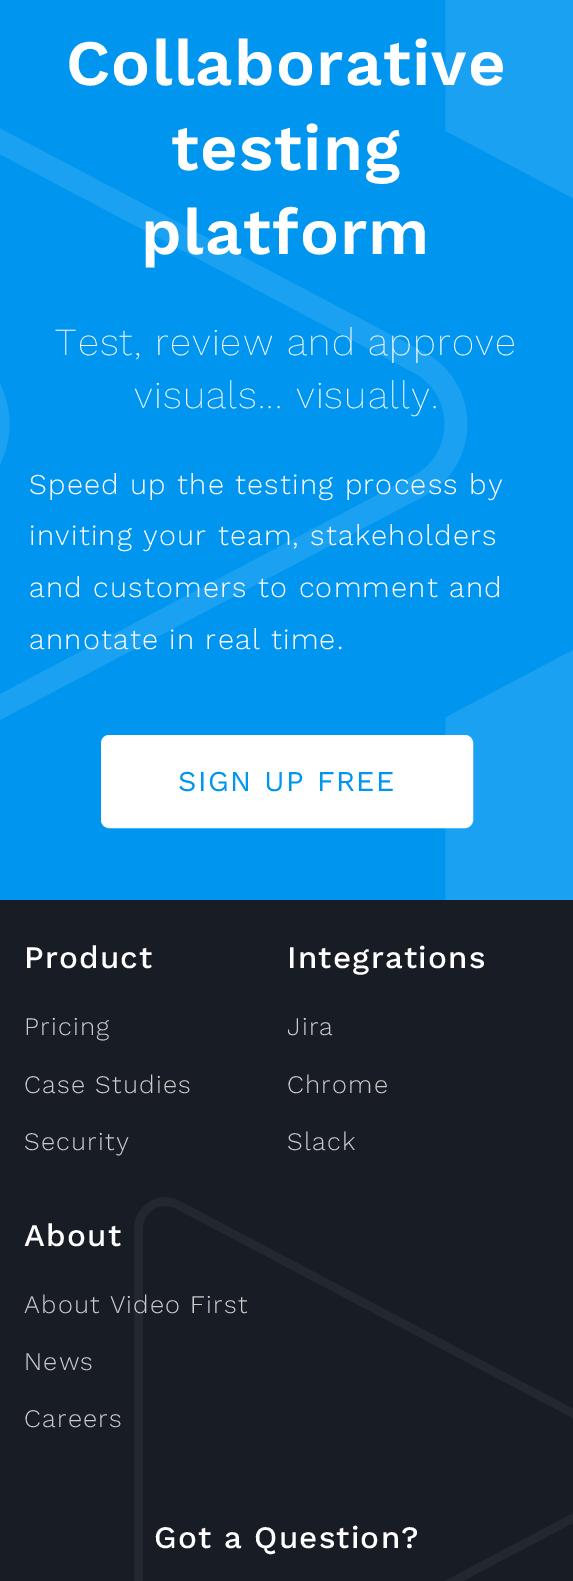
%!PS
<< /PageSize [573 1581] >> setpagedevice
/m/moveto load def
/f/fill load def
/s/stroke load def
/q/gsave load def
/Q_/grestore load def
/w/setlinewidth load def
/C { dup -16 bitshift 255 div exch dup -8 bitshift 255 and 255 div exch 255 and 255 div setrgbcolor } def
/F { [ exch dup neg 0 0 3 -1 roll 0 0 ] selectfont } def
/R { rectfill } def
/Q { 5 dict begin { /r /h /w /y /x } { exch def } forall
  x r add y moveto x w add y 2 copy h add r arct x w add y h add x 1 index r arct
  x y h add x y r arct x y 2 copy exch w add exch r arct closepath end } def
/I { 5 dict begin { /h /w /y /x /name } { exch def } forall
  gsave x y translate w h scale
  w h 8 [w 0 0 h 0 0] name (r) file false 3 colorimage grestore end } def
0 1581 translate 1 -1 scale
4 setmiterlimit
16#171C25 C
0 0 573 1581 R
16#0096F0 C
0 0 573 900 R
(1.rgb) 0 0 573 900 I
/WorkSans-SemiBold 64.75 F
16#FFFFFF C
66 85 m 1.2 0 (Collaborative) ashow
171 170 m 1.2 0 (testing) ashow
141 254 m 1.2 0 (platform) ashow
/WorkSans-ExtraLight 38.4 F
55 355 m 1.2 0 (Test, review and approve) ashow
134 408 m 1.2 0 (visuals... visually.) ashow
/WorkSans-Light 28.75 F
29 494 m 1.2 0 (Speed up the testing process by) ashow
29 545 m 1.2 0 (inviting your team, stakeholders) ashow
29 597 m 1.2 0 (and customers to comment and) ashow
29 649 m 1.2 0 (annotate in real time.) ashow
102 736 370 91 7 Q q f Q_
2 w
s
/WorkSans-Regular 28.75 F
16#0096F0 C
178 791 m 1.5 0 (SIGN UP FREE) ashow
/WorkSans-Medium 31.25 F
16#FFFFFF C
24 968 m 1.2 0 (Product) ashow
/WorkSans-Light 25.25 F
16#CCCCCC C
24 1035 m 1.2 0 (Pricing) ashow
24 1093 m 1.2 0 (Case Studies) ashow
24 1150 m 1.2 0 (Security) ashow
/WorkSans-Medium 31.25 F
16#FFFFFF C
287 968 m 1.2 0 (Integrations) ashow
/WorkSans-Light 25.25 F
16#CCCCCC C
287 1035 m 1.2 0 (Jira) ashow
287 1093 m 1.2 0 (Chrome) ashow
287 1150 m 1.2 0 (Slack) ashow
/WorkSans-Medium 31.25 F
16#FFFFFF C
24 1246 m 1.2 0 (About) ashow
(2.rgb) 134 1197 439 384 I
/WorkSans-Light 25.25 F
16#CCCCCC C
24 1313 m 1.2 0 (About Video First) ashow
24 1370 m 1.2 0 (News) ashow
24 1427 m 1.2 0 (Careers) ashow
/WorkSans-Medium 31.25 F
16#FFFFFF C
154 1548 m 1.2 0 (Got a Question?) ashow
showpage
